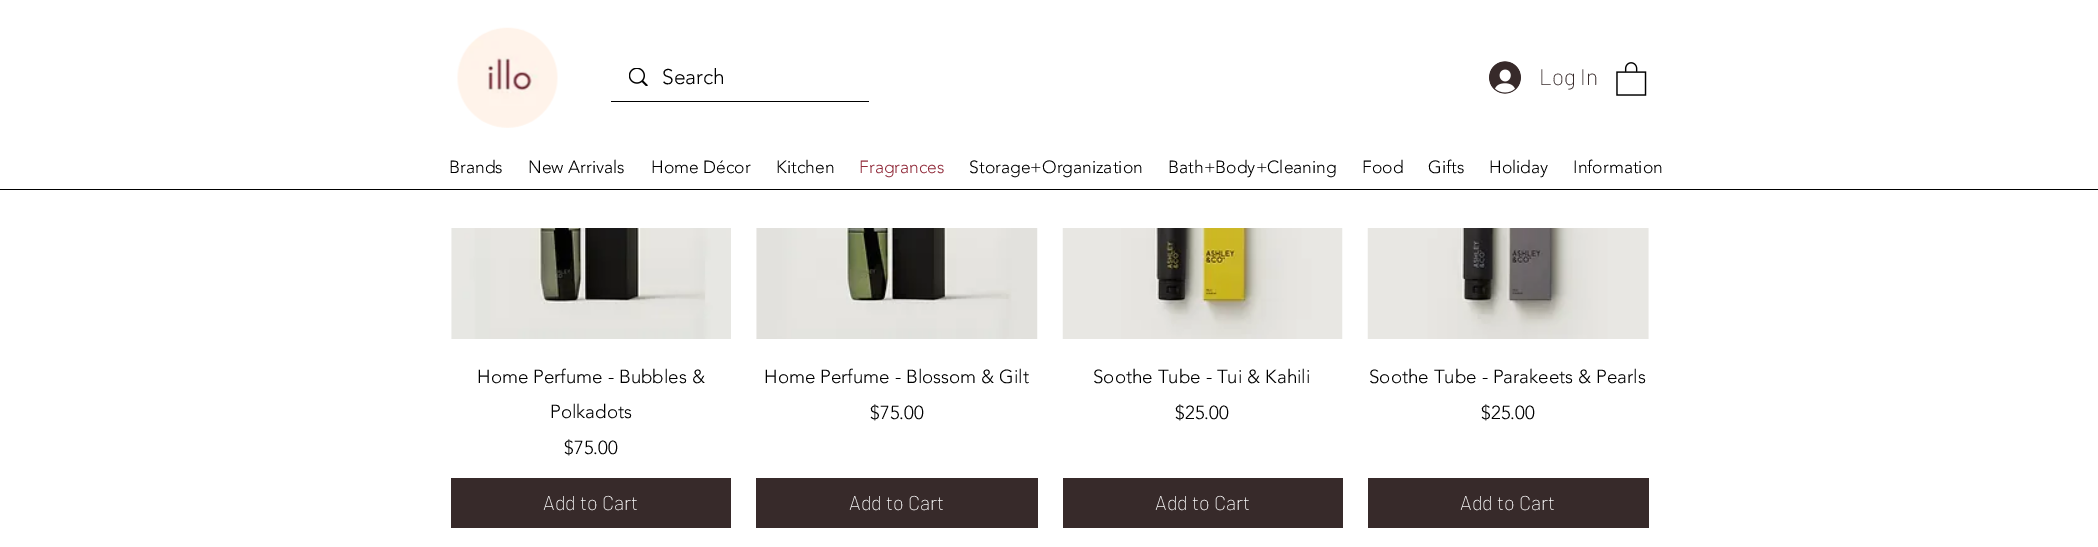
%!PS
<< /PageSize [2098 547] >> setpagedevice
/C { dup -16 bitshift 255 div exch dup -8 bitshift 255 and 255 div exch 255 and 255 div setrgbcolor } def
/F { [ exch dup neg 0 0 3 -1 roll 0 0 ] selectfont } def
/T { moveto show } def
/R { rectfill } def
/I { 5 dict begin { /h /w /y /x /name } { exch def } forall
  gsave x y translate w h scale
  w h 8 [w 0 0 h 0 0] name (r) file false 3 colorimage grestore end } def
0 547 translate 1 -1 scale
4 setmiterlimit
16#FFFFFF C
0 0 2098 547 R
(1.rgb) 457 27 101 101 I
16#000000 C
611 101 258 1 R
(2.rgb) 629 68 19 18 I
/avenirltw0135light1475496-Light 21 F
(Search) 662 84 T
(3.rgb) 1489 61 32 33 I
/Barlow-ExtraLight 22.5 F
16#372A2A C
(Log In) 1539 85 T
(4.rgb) 1616 62 31 34 I
/avenirltw0135light1475496-Light 17.5 F
16#000000 C
(Brands) 449 173 T
(New Arrivals) 528 173 T
(Home Décor) 651 173 T
(Kitchen) 776 173 T
16#922C3C C
(Fragrances) 859 173 T
16#000000 C
(Storage+Organization) 969 173 T
(Bath+Body+Cleaning) 1168 173 T
(Food) 1362 173 T
(Gifts) 1428 173 T
(Holiday) 1489 173 T
(Information) 1573 173 T
0 189 2098 1 R
(5.rgb) 451 228 280 111 I
/avenirltw0135light1475496-Light 18.75 F
(Home Perfume - Bubbles &) 477 383 T
(Polkadots) 550 418 T
($75.00) 564 454 T
16#372A2A C
451 478 280 50 R
/Barlow-ExtraLight 20 F
16#FFFFFF C
(Add to Cart) 543 510 T
(6.rgb) 756 228 282 111 I
/avenirltw0135light1475496-Light 18.75 F
16#000000 C
(Home Perfume - Blossom & Gilt) 764 383 T
($75.00) 870 419 T
16#372A2A C
756 478 282 50 R
/Barlow-ExtraLight 20 F
16#FFFFFF C
(Add to Cart) 849 510 T
(7.rgb) 1062 228 281 111 I
/avenirltw0135light1475496-Light 18.75 F
16#000000 C
(Soothe Tube - Tui & Kahili) 1093 383 T
($25.00) 1175 419 T
16#372A2A C
1063 478 280 50 R
/Barlow-ExtraLight 20 F
16#FFFFFF C
(Add to Cart) 1155 510 T
(8.rgb) 1367 228 282 111 I
/avenirltw0135light1475496-Light 18.75 F
16#000000 C
(Soothe Tube - Parakeets & Pearls) 1369 383 T
($25.00) 1481 419 T
16#372A2A C
1368 478 281 50 R
/Barlow-ExtraLight 20 F
16#FFFFFF C
(Add to Cart) 1460 510 T
showpage
